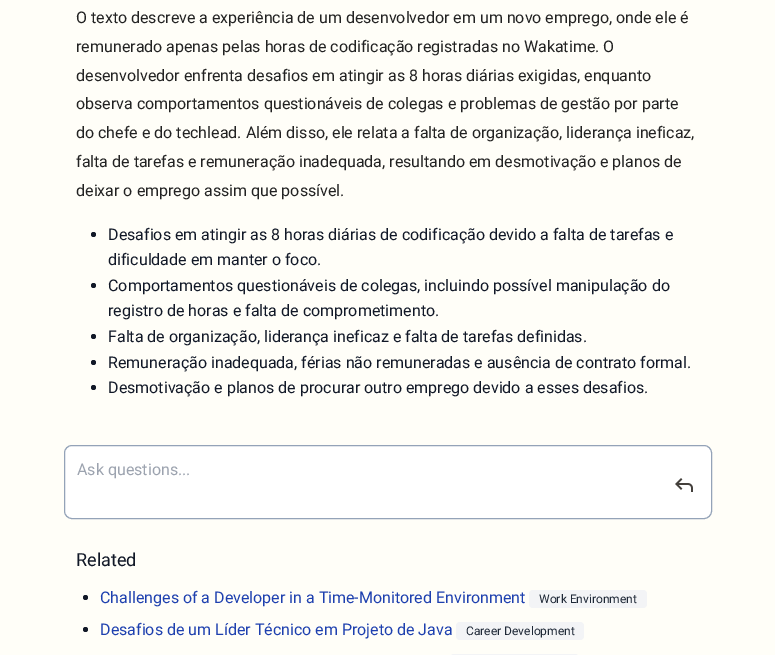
%!PS
<< /PageSize [775 655] >> setpagedevice
/f/fill load def
/s/stroke load def
/q/gsave load def
/Q_/grestore load def
/C { dup -16 bitshift 255 div exch dup -8 bitshift 255 and 255 div exch 255 and 255 div setrgbcolor } def
/F { [ exch dup neg 0 0 3 -1 roll 0 0 ] selectfont } def
/T { moveto show } def
/R { rectfill } def
/O { newpath 0 360 arc closepath } def
/Q { 5 dict begin { /r /h /w /y /x } { exch def } forall
  x r add y moveto x w add y 2 copy h add r arct x w add y h add x 1 index r arct
  x y h add x y r arct x y 2 copy exch w add exch r arct closepath end } def
/I { 5 dict begin { /h /w /y /x /name } { exch def } forall
  gsave x y translate w h scale
  w h 8 [w 0 0 h 0 0] name (r) file false 3 colorimage grestore end } def
0 655 translate 1 -1 scale
4 setmiterlimit
16#FFFEF8 C
0 0 775 655 R
/Roboto-Regular 16 F
16#222222 C
(O texto descreve a experiência de um desenvolvedor em um novo emprego, onde ele é) 76 23 T
(remunerado apenas pelas horas de codificação registradas no Wakatime. O) 76 52 T
(desenvolvedor enfrenta desafios em atingir as 8 horas diárias exigidas, enquanto) 76 81 T
(observa comportamentos questionáveis de colegas e problemas de gestão por parte) 76 109 T
(do chefe e do techlead. Além disso, ele relata a falta de organização, liderança ineficaz,) 76 138 T
(falta de tarefas e remuneração inadequada, resultando em desmotivação e planos de) 76 167 T
(deixar o emprego assim que possível.) 76 196 T
16#111827 C
93.5 234.5 2.5 O f
(Desafios em atingir as 8 horas diárias de codificação devido a falta de tarefas e) 108 240 T
(dificuldade em manter o foco.) 108 265 T
93.5 285.5 2.5 O f
(Comportamentos questionáveis de colegas, incluindo possível manipulação do) 108 291 T
(registro de horas e falta de comprometimento.) 108 316 T
93.5 336.5 2.5 O f
(Falta de organização, liderança ineficaz e falta de tarefas definidas.) 108 342 T
93.5 362.5 2.5 O f
(Remuneração inadequada, férias não remuneradas e ausência de contrato formal.) 108 368 T
93.5 387.5 2.5 O f
(Desmotivação e planos de procurar outro emprego devido a esses desafios.) 108 393 T
16#FFFFFF C
64.5 445.5 647 73 7.5 Q q f Q_
16#94A3B8 C
s
16#9CA3AF C
(Ask questions...) 77 475 T
(1.rgb) 675 478 18 14 I
/Roboto-Regular 18 F
16#111827 C
(Related) 76 566 T
85.5 597.5 2.5 O f
/Roboto-Regular 16 F
16#1E40AF C
(Challenges of a Developer in a Time-Monitored Environment) 100 603 T
16#F3F4F6 C
529 590 118 18 4 Q f
/Roboto-Regular 12 F
16#1F2937 C
(Work Environment) 539 603 T
16#111827 C
85.5 629.5 2.5 O f
/Roboto-Regular 16 F
16#1E40AF C
(Desafios de um Líder Técnico em Projeto de Java) 100 635 T
16#F3F4F6 C
456 622 128 18 4 Q f
/Roboto-Regular 12 F
16#1F2937 C
(Career Development) 466 635 T
16#F3F4F6 C
450 654 129 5 4 Q f
showpage
